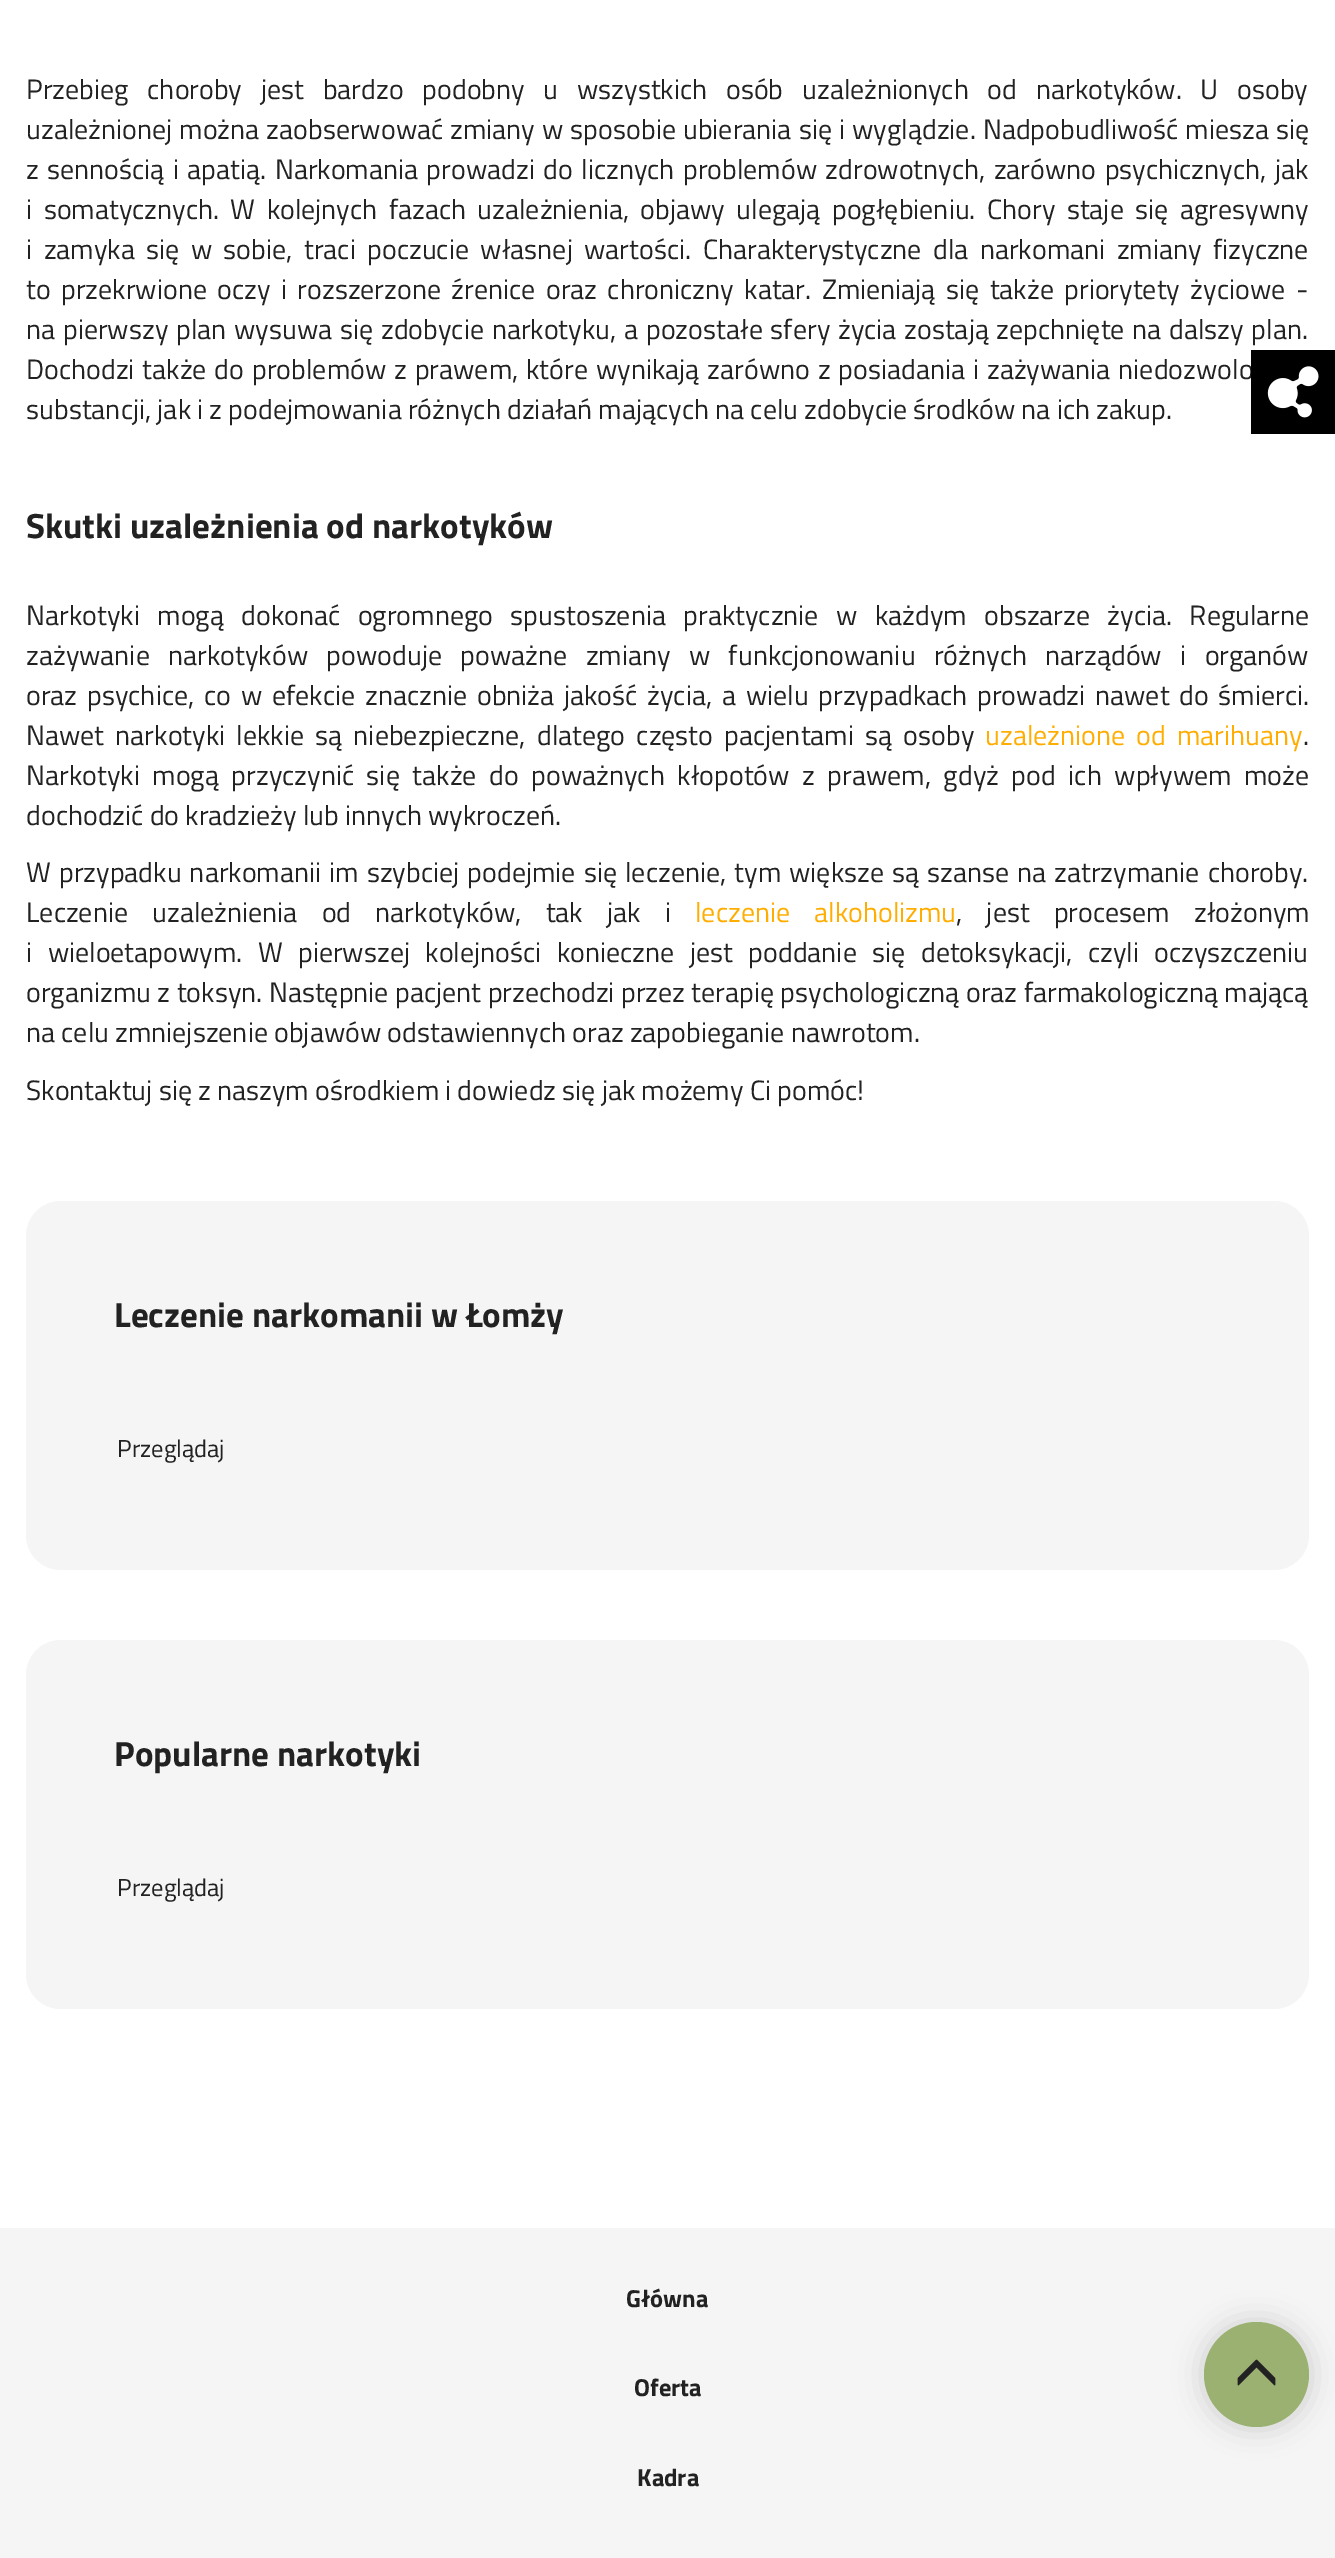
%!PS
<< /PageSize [1335 2558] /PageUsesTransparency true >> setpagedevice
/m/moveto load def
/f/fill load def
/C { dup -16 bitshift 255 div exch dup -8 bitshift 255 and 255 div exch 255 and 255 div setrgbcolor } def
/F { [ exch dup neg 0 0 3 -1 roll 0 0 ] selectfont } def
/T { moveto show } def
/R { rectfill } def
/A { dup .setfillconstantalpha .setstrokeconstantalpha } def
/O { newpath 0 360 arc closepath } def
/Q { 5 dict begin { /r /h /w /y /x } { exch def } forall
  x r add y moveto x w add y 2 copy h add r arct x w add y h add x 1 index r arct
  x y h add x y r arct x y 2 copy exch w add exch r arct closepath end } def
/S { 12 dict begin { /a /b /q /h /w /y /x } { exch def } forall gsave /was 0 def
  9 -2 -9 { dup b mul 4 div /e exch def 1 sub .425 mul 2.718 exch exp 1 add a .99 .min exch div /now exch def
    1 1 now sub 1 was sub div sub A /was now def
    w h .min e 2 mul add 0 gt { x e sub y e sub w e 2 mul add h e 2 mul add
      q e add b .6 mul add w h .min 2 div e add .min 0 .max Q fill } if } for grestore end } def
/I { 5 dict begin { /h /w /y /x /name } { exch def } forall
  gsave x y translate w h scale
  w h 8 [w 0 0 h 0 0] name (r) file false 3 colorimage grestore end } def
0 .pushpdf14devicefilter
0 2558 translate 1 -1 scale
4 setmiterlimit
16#FFFFFF C
0 0 1335 2558 R
/Cairo-Regular 28 F
16#222222 C
26 99 m 12.6 0 32 (Przebieg choroby jest bardzo podobny u wszystkich osób uzależnionych od narkotyków. U osoby) widthshow
26 139 m .9 0 32 (uzależnionej można zaobserwować zmiany w sposobie ubierania się i wyglądzie. Nadpobudliwość miesza się) widthshow
26 179 m 2.25 0 32 (z sennością i apatią. Narkomania prowadzi do licznych problemów zdrowotnych, zarówno psychicznych, jak) widthshow
26 219 m 5.25 0 32 (i somatycznych. W kolejnych fazach uzależnienia, objawy ulegają pogłębieniu. Chory staje się agresywny) widthshow
26 259 m 5.25 0 32 (i zamyka się w sobie, traci poczucie własnej wartości. Charakterystyczne dla narkomani zmiany fizyczne) widthshow
26 299 m 4.25 0 32 (to przekrwione oczy i rozszerzone źrenice oraz chroniczny katar. Zmieniają się także priorytety życiowe -) widthshow
26 339 m 1.6 0 32 (na pierwszy plan wysuwa się zdobycie narkotyku, a pozostałe sfery życia zostają zepchnięte na dalszy plan.) widthshow
26 379 m 1.75 0 32 (Dochodzi także do problemów z prawem, które wynikają zarówno z posiadania i zażywania niedozwolo) widthshow
(substancji, jak i z podejmowania różnych działań mających na celu zdobycie środków na ich zakup.) 26 419 T
/Cairo-Bold 35 F
(Skutki uzależnienia od narkotyków) 26 538 T
/Cairo-Regular 28 F
26 625 m 11.25 0 32 (Narkotyki mogą dokonać ogromnego spustoszenia praktycznie w każdym obszarze życia. Regularne) widthshow
26 665 m 12.25 0 32 (zażywanie narkotyków powoduje poważne zmiany w funkcjonowaniu różnych narządów i organów) widthshow
26 705 m 3.6 0 32 (oraz psychice, co w efekcie znacznie obniża jakość życia, a wielu przypadkach prowadzi nawet do śmierci.) widthshow
26 745 m 5 0 32 (Nawet narkotyki lekkie są niebezpieczne, dlatego często pacjentami są osoby) widthshow
16#FFAD00 C
985 745 m 5 0 32 (uzależnione od marihuany) widthshow
16#222222 C
(.) 1303 745 T
26 785 m 6.4 0 32 (Narkotyki mogą przyczynić się także do poważnych kłopotów z prawem, gdyż pod ich wpływem może) widthshow
(dochodzić do kradzieży lub innych wykroczeń.) 26 825 T
26 882 m 1.9 0 32 (W przypadku narkomanii im szybciej podejmie się leczenie, tym większe są szanse na zatrzymanie choroby.) widthshow
26 922 m 18 0 32 (Leczenie uzależnienia od narkotyków, tak jak i) widthshow
16#FFAD00 C
695 922 m 18 0 32 (leczenie alkoholizmu) widthshow
16#222222 C
956 922 m 18 0 32 (, jest procesem złożonym) widthshow
26 962 m 9.25 0 32 (i wieloetapowym. W pierwszej kolejności konieczne jest poddanie się detoksykacji, czyli oczyszczeniu) widthshow
26 1002 m .25 0 32 (organizmu z toksyn. Następnie pacjent przechodzi przez terapię psychologiczną oraz farmakologiczną mającą) widthshow
(na celu zmniejszenie objawów odstawiennych oraz zapobieganie nawrotom.) 26 1042 T
(Skontaktuj się z naszym ośrodkiem i dowiedz się jak możemy Ci pomóc!) 26 1100 T
16#F5F5F5 C
26 1201 1283 369 35 Q f
/Cairo-Bold 35 F
16#222222 C
(Leczenie narkomanii w Łomży) 114 1327 T
/Cairo-Regular 24.5 F
(Przeglądaj) 117 1457 T
16#F5F5F5 C
26 1640 1283 369 35 Q f
/Cairo-Bold 35 F
16#222222 C
(Popularne narkotyki) 114 1766 T
/Cairo-Regular 24.5 F
(Przeglądaj) 117 1896 T
16#000000 C
1251 350 84 84 R
(1.rgb) 1267 366 52 52 I
16#F5F5F5 C
0 2228 1335 330 R
/Cairo-Bold 24.5 F
16#222222 C
(Główna) 626 2307 T
(Oferta) 634 2396 T
(Kadra) 637 2486 T
16#000000 C
1202 2321 109 108 54 14 .15 S
16#9BB171 C
1256.5 2374.5 52.5 O f
(2.rgb) 1237 2359 39 27 I
.poppdf14devicefilter showpage
